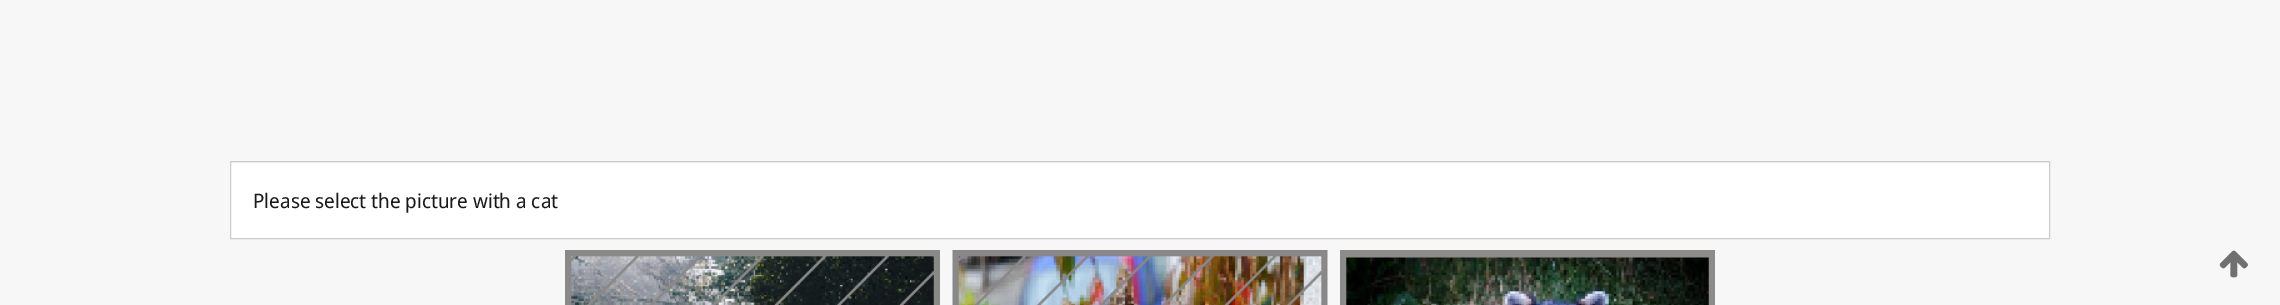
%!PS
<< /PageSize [2280 305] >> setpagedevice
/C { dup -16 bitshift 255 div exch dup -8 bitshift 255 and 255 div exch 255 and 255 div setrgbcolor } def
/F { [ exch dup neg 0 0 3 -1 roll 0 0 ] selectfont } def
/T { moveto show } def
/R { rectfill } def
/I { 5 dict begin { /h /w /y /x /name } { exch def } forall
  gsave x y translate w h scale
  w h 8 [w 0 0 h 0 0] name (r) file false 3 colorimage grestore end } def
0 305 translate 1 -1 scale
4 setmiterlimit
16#F7F7F7 C
0 0 2280 305 R
16#FFFFFF C
231 163 1818 75 R
16#CCCCCC C
230.5 161.5 1819 77 rectstroke
/NotoSansDisplay-Regular 20 F
16#1A1A1A C
(Please select the picture with a cat) 253 208 T
(1.rgb) 565 250 375 55 I
(2.rgb) 952 250 376 55 I
(3.rgb) 1340 250 375 55 I
(4.rgb) 2219 250 29 28 I
showpage
